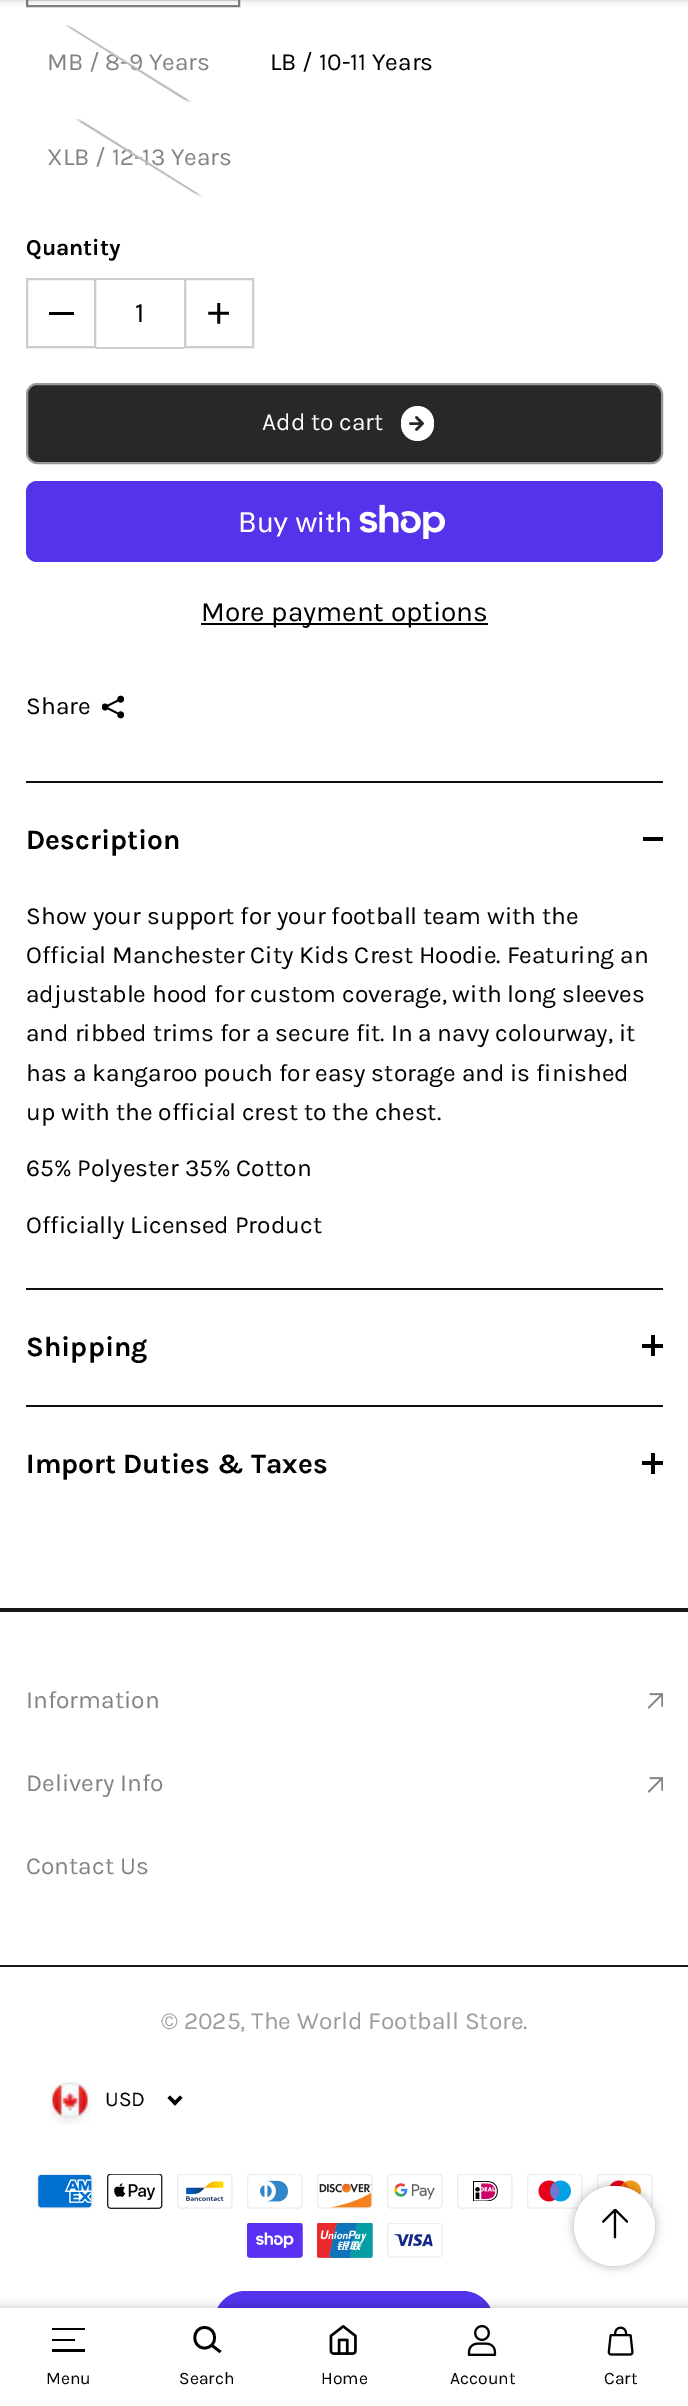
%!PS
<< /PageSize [688 2406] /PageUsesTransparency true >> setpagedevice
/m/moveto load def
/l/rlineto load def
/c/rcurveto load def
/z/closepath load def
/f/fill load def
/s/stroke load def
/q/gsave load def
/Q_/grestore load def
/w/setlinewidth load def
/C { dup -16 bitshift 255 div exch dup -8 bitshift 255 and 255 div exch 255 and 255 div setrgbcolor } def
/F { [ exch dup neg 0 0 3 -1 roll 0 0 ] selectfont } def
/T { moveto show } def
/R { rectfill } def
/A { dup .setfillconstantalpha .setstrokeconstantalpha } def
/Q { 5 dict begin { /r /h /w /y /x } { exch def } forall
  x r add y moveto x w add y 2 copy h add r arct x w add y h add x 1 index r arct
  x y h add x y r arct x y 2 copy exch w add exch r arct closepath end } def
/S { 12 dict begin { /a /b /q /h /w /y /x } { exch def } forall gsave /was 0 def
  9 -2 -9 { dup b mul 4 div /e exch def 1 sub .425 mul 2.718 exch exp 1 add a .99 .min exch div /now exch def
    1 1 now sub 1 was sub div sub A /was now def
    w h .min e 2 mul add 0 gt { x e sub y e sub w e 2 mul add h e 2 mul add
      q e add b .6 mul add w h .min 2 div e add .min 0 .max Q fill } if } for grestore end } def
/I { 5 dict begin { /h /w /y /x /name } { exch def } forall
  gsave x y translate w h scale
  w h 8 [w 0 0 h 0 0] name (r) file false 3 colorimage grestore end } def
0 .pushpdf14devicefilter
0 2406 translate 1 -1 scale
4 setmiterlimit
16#FFFFFF C
0 0 688 2406 R
16#808080 C
2 w
27 -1 212 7 rectstroke
16#000000 C
0 -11 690 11 0 3.5 .21 S
/Karla-Regular 24.5 F
16#848383 C
(MB / 8-9 Years) 47 70 T
q
26 25 205 77 rectclip
16#BFBFBF C
42 9 m 174 108 l -1 2 l -174 -109 l z f
Q_
0.5 A
16#FFFFFF C
27 26 203 75 rectstroke
1 A
16#000000 C
(LB / 10-11 Years) 270 70 T
16#848383 C
(XLB / 12-13 Years) 47 165 T
q
26 119 228 77 rectclip
16#BFBFBF C
44 97 m 193 121 l -1 1 l -193 -120 l z f
Q_
0.5 A
16#FFFFFF C
27 120 226 75 rectstroke
/Karla-Bold 22.75 F
1 A
16#000000 C
(Quantity) 26 255 T
16#CCCCCC C
27 279 68 68 rectstroke
16#000000 C
49 312 25 3 R
16#CCCCCC C
96 278 88 2 R
96 347 88 2 R
/Karla-Regular 28 F
16#000000 C
(1) 135 322 T
16#CCCCCC C
185 279 68 68 rectstroke
(1.rgb) 208 303 21 21 I
16#282828 C
27 384 635 79 10 Q q f Q_
16#999797 C
s
/Karla-Regular 24.5 F
16#FFFFFF C
(Add to cart) 262 430 T
401 406 33 35 16.5 Q f
16#282828 C
2.6 w
1 setlinecap
1 setlinejoin
410.5 423.5 m 12 0 l 416.5 417.5 m 6 6 l -6 6 l s
16#5433EB C
26 481 637 81 11 Q f
/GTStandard-Regular 28 F
16#FFFFFF C
(Buy with) 238 532 T
(2.rgb) 359 504 86 35 I
16#000000 C
201 623 287 2 R
/Karla-Regular 28 F
(More payment options) 201 621 T
/Karla-Regular 24.5 F
(Share) 26 714 T
(3.rgb) 102 695 22 24 I
16#101010 C
26 1288 637 2 R
26 781 637 2 R
/Karla-Bold 28 F
16#000000 C
(Description) 26 849 T
643 837 20 4 R
/Karla-Regular 24.5 F
(Show your support for your football team with the) 26 924 T
(Official Manchester City Kids Crest Hoodie. Featuring an) 26 963 T
(adjustable hood for custom coverage, with long sleeves) 26 1002 T
(and ribbed trims for a secure fit. In a navy colourway, it) 26 1041 T
(has a kangaroo pouch for easy storage and is finished) 26 1081 T
(up with the official crest to the chest.) 26 1120 T
(65% Polyester 35% Cotton) 26 1176 T
(Officially Licensed Product) 26 1233 T
16#101010 C
26 1405 637 2 R
/Karla-Bold 28 F
16#000000 C
(Shipping) 26 1356 T
651 1335 4 21 R
642 1344 21 4 R
(Import Duties & Taxes) 26 1473 T
651 1453 4 21 R
642 1461 21 4 R
16#181818 C
0 1608 688 4 R
/Karla-Regular 24.5 F
16#848383 C
(Information) 26 1708 T
(4.rgb) 648 1693 15 16 I
(Delivery Info) 26 1791 T
(4.rgb) 648 1777 15 16 I
(Contact Us) 26 1874 T
16#181818 C
0 1965 688 2 R
16#9D9C9C C
(© 2025, The World Football Store.) 161 2029 T
(5.rgb) 49 2082 42 43 I
/Karla-Regular 21 F
16#000000 C
(USD) 105 2106 T
180 2095.5 m 2.5 2.5 l -7.5 7.5 l -2.5 -2.5 l z f
170 2095.5 m 7.5 7.5 l -2.5 2.5 l -7.5 -7.5 l z f
(6.rgb) 37 2174 56 35 I
(7.rgb) 107 2174 56 35 I
(8.rgb) 177 2174 56 35 I
(9.rgb) 247 2174 56 35 I
(10.rgb) 317 2174 56 35 I
(11.rgb) 387 2174 56 35 I
(12.rgb) 457 2174 56 35 I
(13.rgb) 527 2174 56 35 I
(14.rgb) 597 2174 56 34 I
(15.rgb) 247 2223 56 35 I
(16.rgb) 317 2223 56 35 I
(17.rgb) 387 2223 56 35 I
16#5433EB C
214 2291 280 63 31.5 Q f
16#000000 C
-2 2307 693 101 0 4.5 .2 S
16#FFFFFF C
0 2308 688 98 R
16#000000 C
52 2328 33 2 R
52 2339 23 2 R
52 2349 33 3 R
/Karla-Regular 17.5 F
(Menu) 46 2384 T
2.7 w
0 setlinecap
0 setlinejoin
204.5 2348 m 13.5 0 13.5 -20.5 0 -20.5 c -13 0 -13 20.5 0 20.5 c z 212 2345.5 m 8.5 6.5 l s
(Search) 179 2384 T
(18.rgb) 329 2325 28 30 I
(Home) 321 2384 T
(19.rgb) 467 2325 30 31 I
(Account) 450 2384 T
(20.rgb) 607 2326 27 30 I
(Cart) 604 2384 T
574 2186 81 80 40 5 .3 S
16#FFFFFF C
574 2186 81 80 40 Q f
(21.rgb) 602 2209 26 30 I
.poppdf14devicefilter showpage
